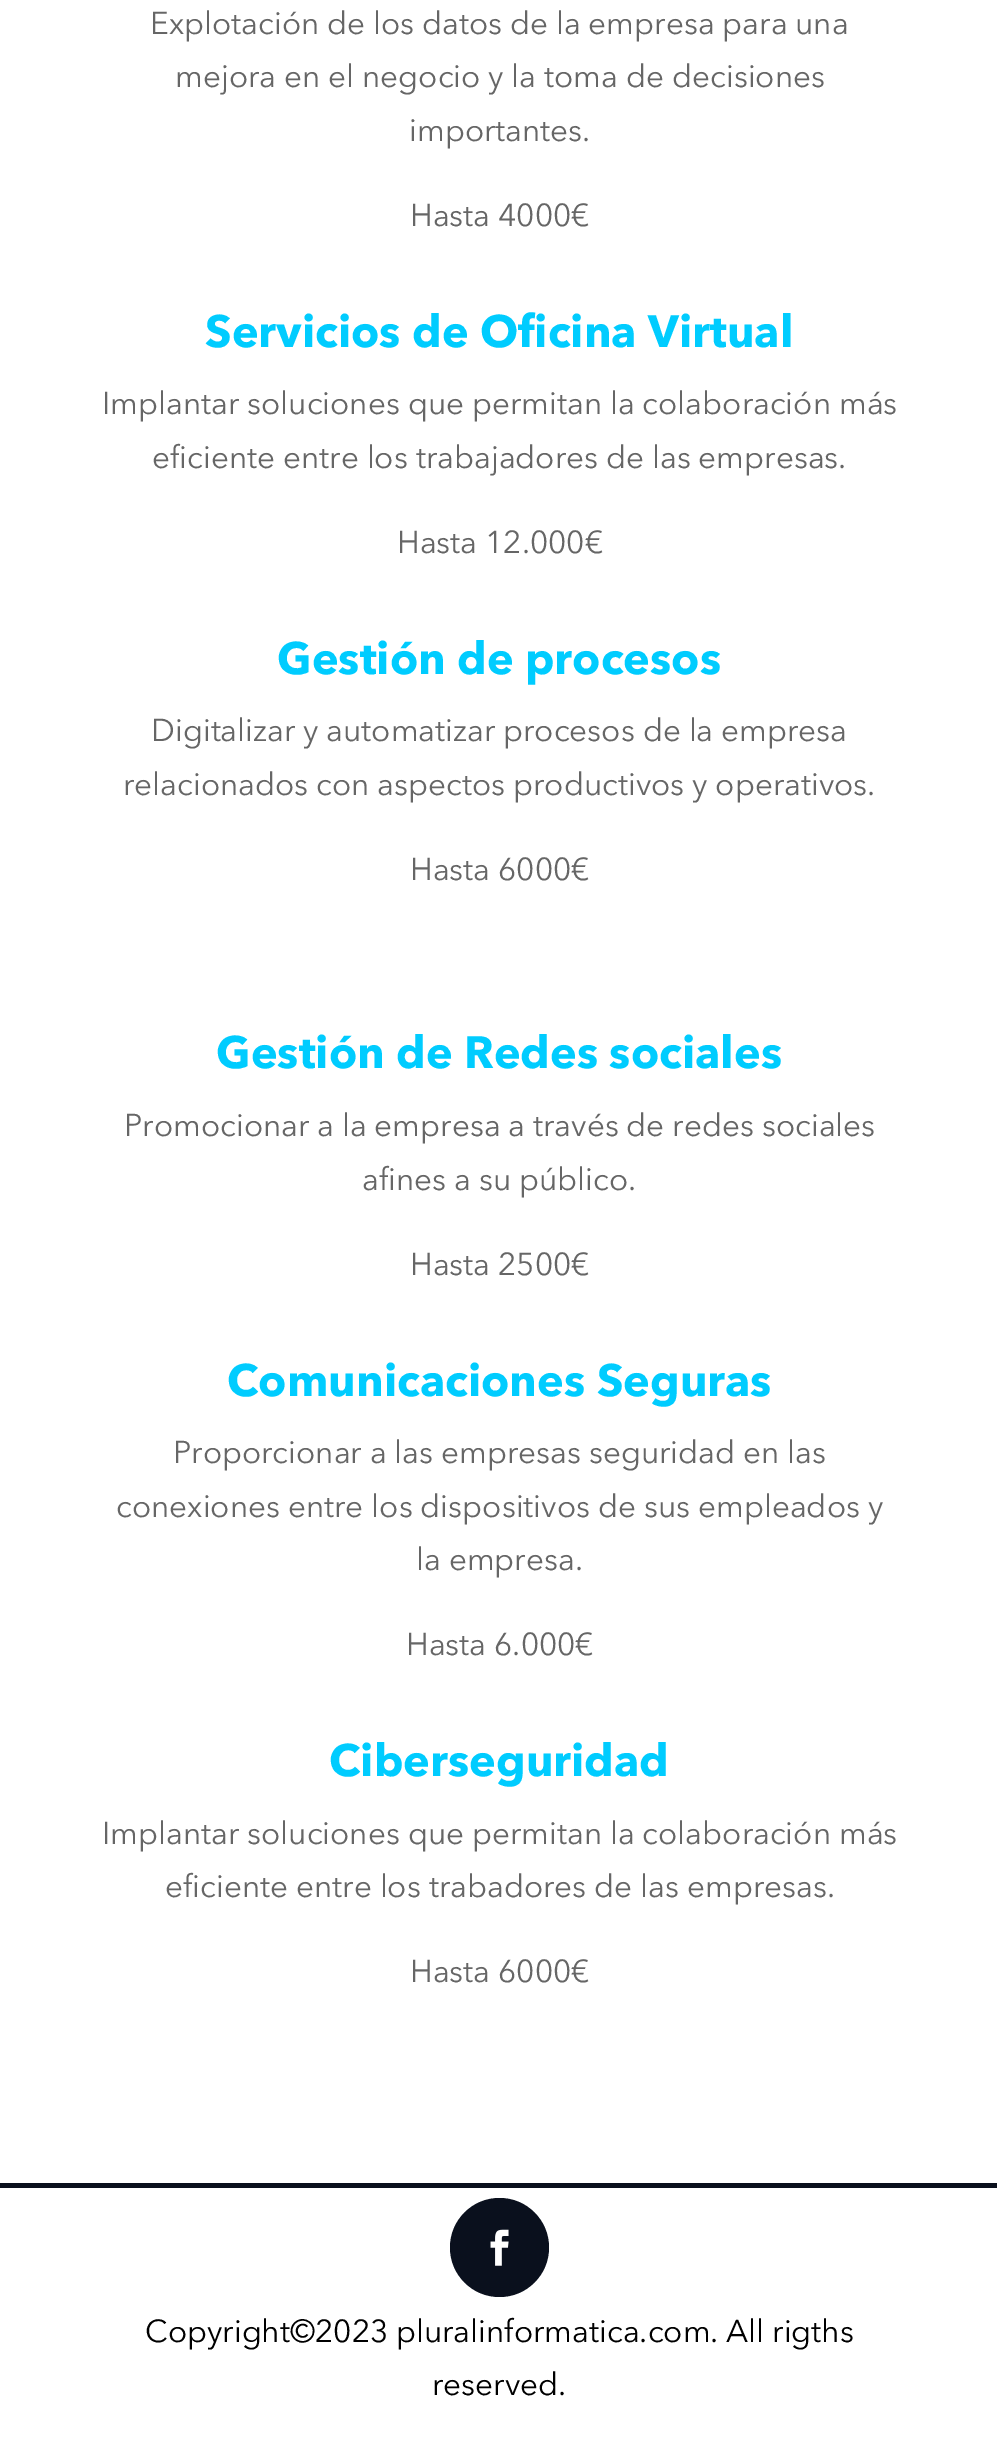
%!PS
<< /PageSize [997 2446] >> setpagedevice
/f/fill load def
/C { dup -16 bitshift 255 div exch dup -8 bitshift 255 and 255 div exch 255 and 255 div setrgbcolor } def
/F { [ exch dup neg 0 0 3 -1 roll 0 0 ] selectfont } def
/T { moveto show } def
/R { rectfill } def
/O { newpath 0 360 arc closepath } def
/I { 5 dict begin { /h /w /y /x /name } { exch def } forall
  gsave x y translate w h scale
  w h 8 [w 0 0 h 0 0] name (r) file false 3 colorimage grestore end } def
0 2446 translate 1 -1 scale
4 setmiterlimit
16#FFFFFF C
0 0 997 2446 R
/AvenirNext-Regular 31.5 F
16#666666 C
(Explotación de los datos de la empresa para una) 150 34 T
(mejora en el negocio y la toma de decisiones) 175 87 T
(importantes.) 409 141 T
(Hasta 4000€) 410 226 T
/AvenirNext-Bold 45 F
16#00CCFF C
(Servicios de Oficina Virtual) 205 347 T
/AvenirNext-Regular 31.5 F
16#666666 C
(Implantar soluciones que permitan la colaboración más) 102 414 T
(eficiente entre los trabajadores de las empresas.) 152 468 T
(Hasta 12.000€) 397 553 T
/AvenirNext-Bold 45 F
16#00CCFF C
(Gestión de procesos) 277 674 T
/AvenirNext-Regular 31.5 F
16#666666 C
(Digitalizar y automatizar procesos de la empresa) 151 741 T
(relacionados con aspectos productivos y operativos.) 123 795 T
(Hasta 6000€) 410 880 T
/AvenirNext-Bold 45 F
16#00CCFF C
(Gestión de Redes sociales) 216 1068 T
/AvenirNext-Regular 31.5 F
16#666666 C
(Promocionar a la empresa a través de redes sociales) 124 1136 T
(afines a su público.) 362 1190 T
(Hasta 2500€) 410 1275 T
/AvenirNext-Bold 45 F
16#00CCFF C
(Comunicaciones Seguras) 227 1396 T
/AvenirNext-Regular 31.5 F
16#666666 C
(Proporcionar a las empresas seguridad en las) 173 1463 T
(conexiones entre los dispositivos de sus empleados y) 116 1517 T
(la empresa.) 416 1570 T
(Hasta 6.000€) 406 1655 T
/AvenirNext-Bold 45 F
16#00CCFF C
(Ciberseguridad) 329 1776 T
/AvenirNext-Regular 31.5 F
16#666666 C
(Implantar soluciones que permitan la colaboración más) 102 1844 T
(eficiente entre los trabadores de las empresas.) 165 1897 T
(Hasta 6000€) 410 1982 T
16#0A101D C
0 2183 997 5 R
499.5 2247.5 49.5 O f
(1.rgb) 490 2229 19 37 I
16#000000 C
(Copyright©2023 pluralinformatica.com. All rigths) 145 2342 T
(reserved.) 432 2395 T
showpage
